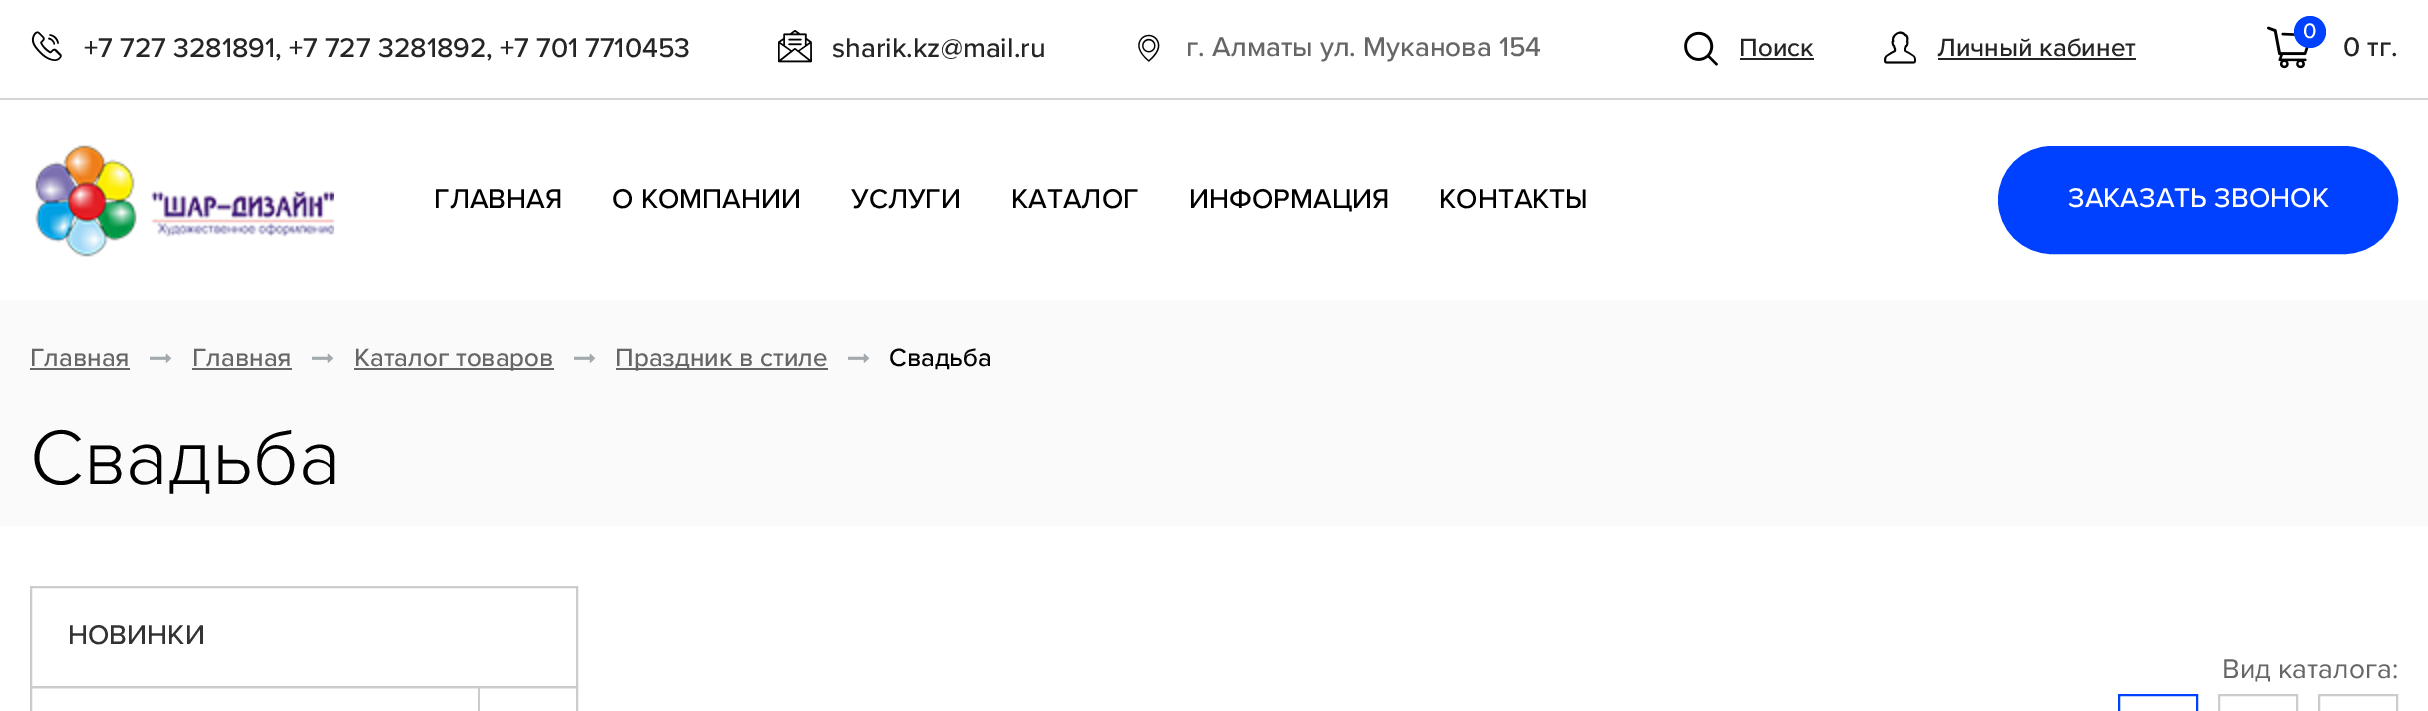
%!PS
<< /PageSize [2428 711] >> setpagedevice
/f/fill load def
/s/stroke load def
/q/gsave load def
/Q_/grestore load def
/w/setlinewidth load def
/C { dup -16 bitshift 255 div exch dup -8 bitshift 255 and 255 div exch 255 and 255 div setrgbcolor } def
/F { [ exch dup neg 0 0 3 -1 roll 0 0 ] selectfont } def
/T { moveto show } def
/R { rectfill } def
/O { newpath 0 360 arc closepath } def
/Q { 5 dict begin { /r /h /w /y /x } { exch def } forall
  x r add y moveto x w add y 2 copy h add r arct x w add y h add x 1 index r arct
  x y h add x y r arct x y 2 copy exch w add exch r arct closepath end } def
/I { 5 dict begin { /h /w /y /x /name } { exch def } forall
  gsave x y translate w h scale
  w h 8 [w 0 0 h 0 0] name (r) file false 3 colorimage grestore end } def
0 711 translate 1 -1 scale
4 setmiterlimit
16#FFFFFF C
0 0 2428 711 R
16#D2D5D5 C
0 98 2428 2 R
(1.rgb) 31 31 31 30 I
/ProximaNova-Medium 28 F
16#252525 C
(+7 727 3281891, +7 727 3281892, +7 701 7710453) 84 57 T
(2.rgb) 778 30 34 33 I
(sharik.kz@mail.ru) 832 57 T
(3.rgb) 1138 34 22 28 I
16#666666 C
(г. Алматы ул. Муканова 154) 1186 56 T
(4.rgb) 1684 31 34 35 I
/ProximaNova-Medium 26 F
16#252525 C
(Поиск) 1739 56 T
1740 58 74 2 R
(5.rgb) 1884 31 32 33 I
(Личный кабинет) 1937 56 T
1938 58 198 2 R
(6.rgb) 2267 26 42 43 I
16#0040FF C
2310 32 16 O f
/ProximaNova-Medium 22 F
16#FFFFFF C
(0) 2303 38 T
/ProximaNova-Medium 28 F
16#252525 C
(0 тг.) 2343 56 T
(7.rgb) 35 145 299 112 I
16#000000 C
(ГЛАВНАЯ) 434 208 T
(О КОМПАНИИ) 612 208 T
(УСЛУГИ) 851 208 T
(КАТАЛОГ) 1011 208 T
(ИНФОРМАЦИЯ) 1189 208 T
(КОНТАКТЫ) 1439 208 T
16#0040FF C
1999 147 398 106 53 Q q f Q_
2 w
s
16#FFFFFF C
(ЗАКАЗАТЬ ЗВОНОК) 2068 207 T
16#FBFAFA C
0 300 2428 226 R
/ProximaNova-Medium 26 F
16#666666 C
(Главная) 30 366 T
30 368 100 2 R
(8.rgb) 150 353 22 10 I
(Главная) 192 366 T
192 368 100 2 R
(8.rgb) 312 353 22 10 I
354 368 200 2 R
(Каталог товаров) 354 366 T
(8.rgb) 574 353 22 10 I
616 368 212 2 R
(Праздник в стиле) 615 366 T
(8.rgb) 848 353 22 10 I
16#000000 C
(Свадьба) 889 366 T
/ProximaNova-Light 80 F
(Свадьба) 30 484 T
16#CCCCCC C
31 587 546 100 rectstroke
/ProximaNova-Medium 28 F
16#333333 C
(НОВИНКИ) 68 644 T
16#CCCCCC C
31 687 546 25 rectstroke
478 688 2 23 R
/ProximaNova-Regular 28 F
16#666666 C
(Вид каталога:) 2222 678 T
16#0040FF C
2119 695 78 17 rectstroke
16#CCCCCC C
2219 695 78 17 rectstroke
2319 695 78 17 rectstroke
showpage
